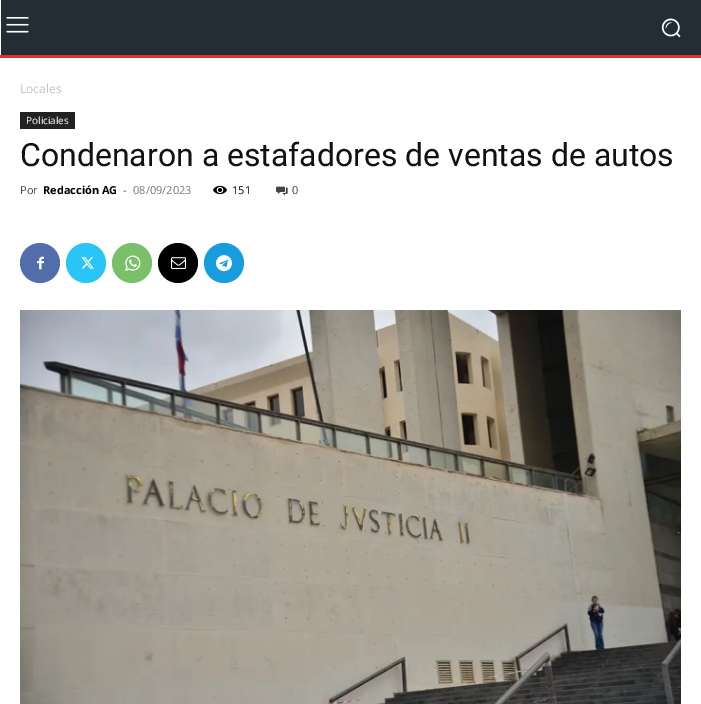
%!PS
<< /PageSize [701 704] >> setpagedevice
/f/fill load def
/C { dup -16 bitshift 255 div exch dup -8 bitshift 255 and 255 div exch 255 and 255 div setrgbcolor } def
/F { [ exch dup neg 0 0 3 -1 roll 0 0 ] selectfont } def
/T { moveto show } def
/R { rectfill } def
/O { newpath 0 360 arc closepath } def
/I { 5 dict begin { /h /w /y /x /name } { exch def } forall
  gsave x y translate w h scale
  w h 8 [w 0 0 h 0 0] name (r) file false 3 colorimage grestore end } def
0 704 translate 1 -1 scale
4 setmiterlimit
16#FFFFFF C
0 0 701 704 R
16#232D35 C
1 0 700 55 R
(1.rgb) 6 17 23 16 I
(2.rgb) 661 18 20 20 I
16#DD3333 C
0 55 701 3 R
/OpenSans-Regular 12 F
16#C3C3C3 C
(Locales) 20 93 T
16#222222 C
20 112 55 17 R
/OpenSans-Regular 10 F
16#FFFFFF C
(Policiales) 26 124 T
/Roboto-Regular 32 F
16#111111 C
(Condenaron a estafadores de ventas de autos) 20 166 T
/OpenSans-Regular 11 F
16#444444 C
(Por) 20 194 T
/OpenSans-Bold 11 F
16#000000 C
(Redacción AG) 43 194 T
/OpenSans-Regular 11 F
16#444444 C
(-) 123 194 T
16#767676 C
(08/09/2023) 133 194 T
(3.rgb) 213 185 14 10 I
16#000000 C
(151) 232 194 T
(4.rgb) 276 186 12 10 I
16#444444 C
(0) 292 194 T
16#516EAB C
40 263 20 O f
(5.rgb) 37 256 7 14 I
16#29C5F6 C
86 263 20 O f
(6.rgb) 81 257 13 12 I
16#7BBF6A C
132 263 20 O f
(7.rgb) 125 255 16 16 I
16#000000 C
178 263 20 O f
(8.rgb) 171 257 15 12 I
16#179CDE C
224 263 20 O f
(9.rgb) 216 255 16 17 I
(10.rgb) 20 310 661 394 I
showpage
